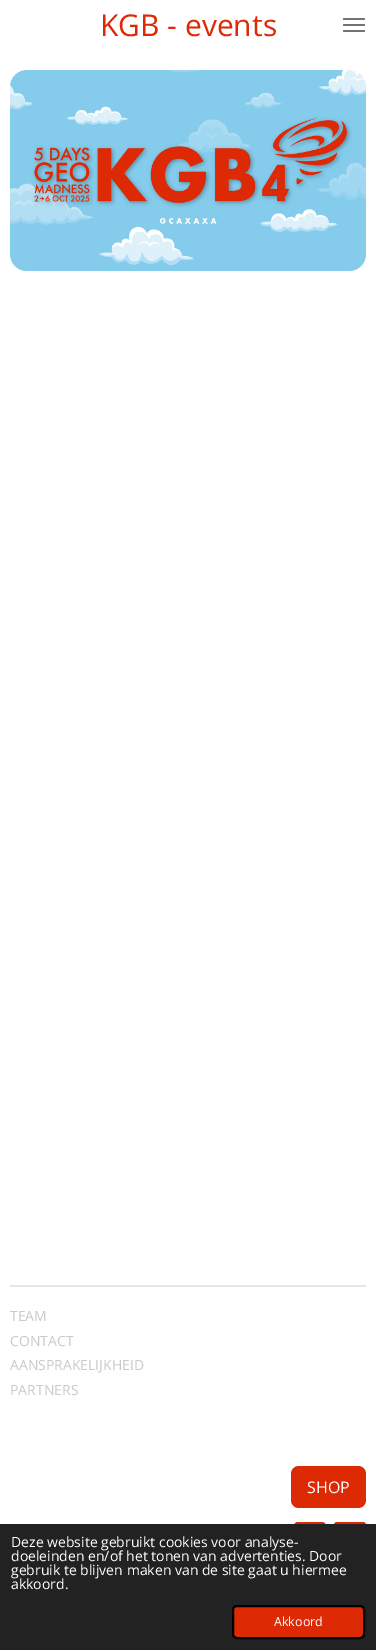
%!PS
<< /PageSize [376 1650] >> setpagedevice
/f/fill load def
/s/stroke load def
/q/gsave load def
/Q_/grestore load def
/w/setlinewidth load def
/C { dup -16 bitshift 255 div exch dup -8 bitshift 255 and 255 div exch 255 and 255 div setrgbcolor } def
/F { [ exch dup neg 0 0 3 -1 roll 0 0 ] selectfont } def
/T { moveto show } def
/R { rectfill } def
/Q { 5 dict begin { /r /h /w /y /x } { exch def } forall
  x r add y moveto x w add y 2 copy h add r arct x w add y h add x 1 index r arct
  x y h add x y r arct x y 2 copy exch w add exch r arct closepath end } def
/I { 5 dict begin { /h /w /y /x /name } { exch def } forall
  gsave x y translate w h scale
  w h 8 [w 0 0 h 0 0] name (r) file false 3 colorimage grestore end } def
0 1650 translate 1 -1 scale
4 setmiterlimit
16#FFFFFF C
0 0 376 1650 R
/OpenSans-Regular 30 F
16#DD2904 C
(KGB - events) 100 36 T
16#737373 C
343 24 22 2 1 Q f
343 18 22 2 1 Q f
343 30 22 2 1 Q f
(1.rgb) 10 70 356 201 I
16#E6E6E6 C
10 1285 356 2 R
/OpenSans-Regular 14 F
16#CACACA C
(TEAM) 10 1321 T
(CONTACT) 10 1346 T
(AANSPRAKELIJKHEID) 10 1370 T
(PARTNERS) 10 1395 T
16#DD2904 C
291 1466 75 42 8 Q f
/OpenSans-Regular 16 F
16#FFFFFF C
(SHOP) 307 1493 T
16#DD2904 C
294 1522 32 32 4 Q f
334 1522 32 32 3 Q f
16#222222 C
0 1524 376 126 R
/OpenSans-Regular 14 F
16#FFFFFF C
(Deze website gebruikt cookies voor analyse-) 11 1547 T
(doeleinden en/of het tonen van advertenties. Door) 11 1561 T
(gebruik te blijven maken van de site gaat u hiermee) 11 1575 T
(akkoord.) 11 1589 T
16#DD2904 C
233 1606 131 32 4 Q q f Q_
16#000000 C
2 w
s
/OpenSans-Regular 12.5 F
16#FFFFFF C
(Akkoord) 274 1626 T
showpage
